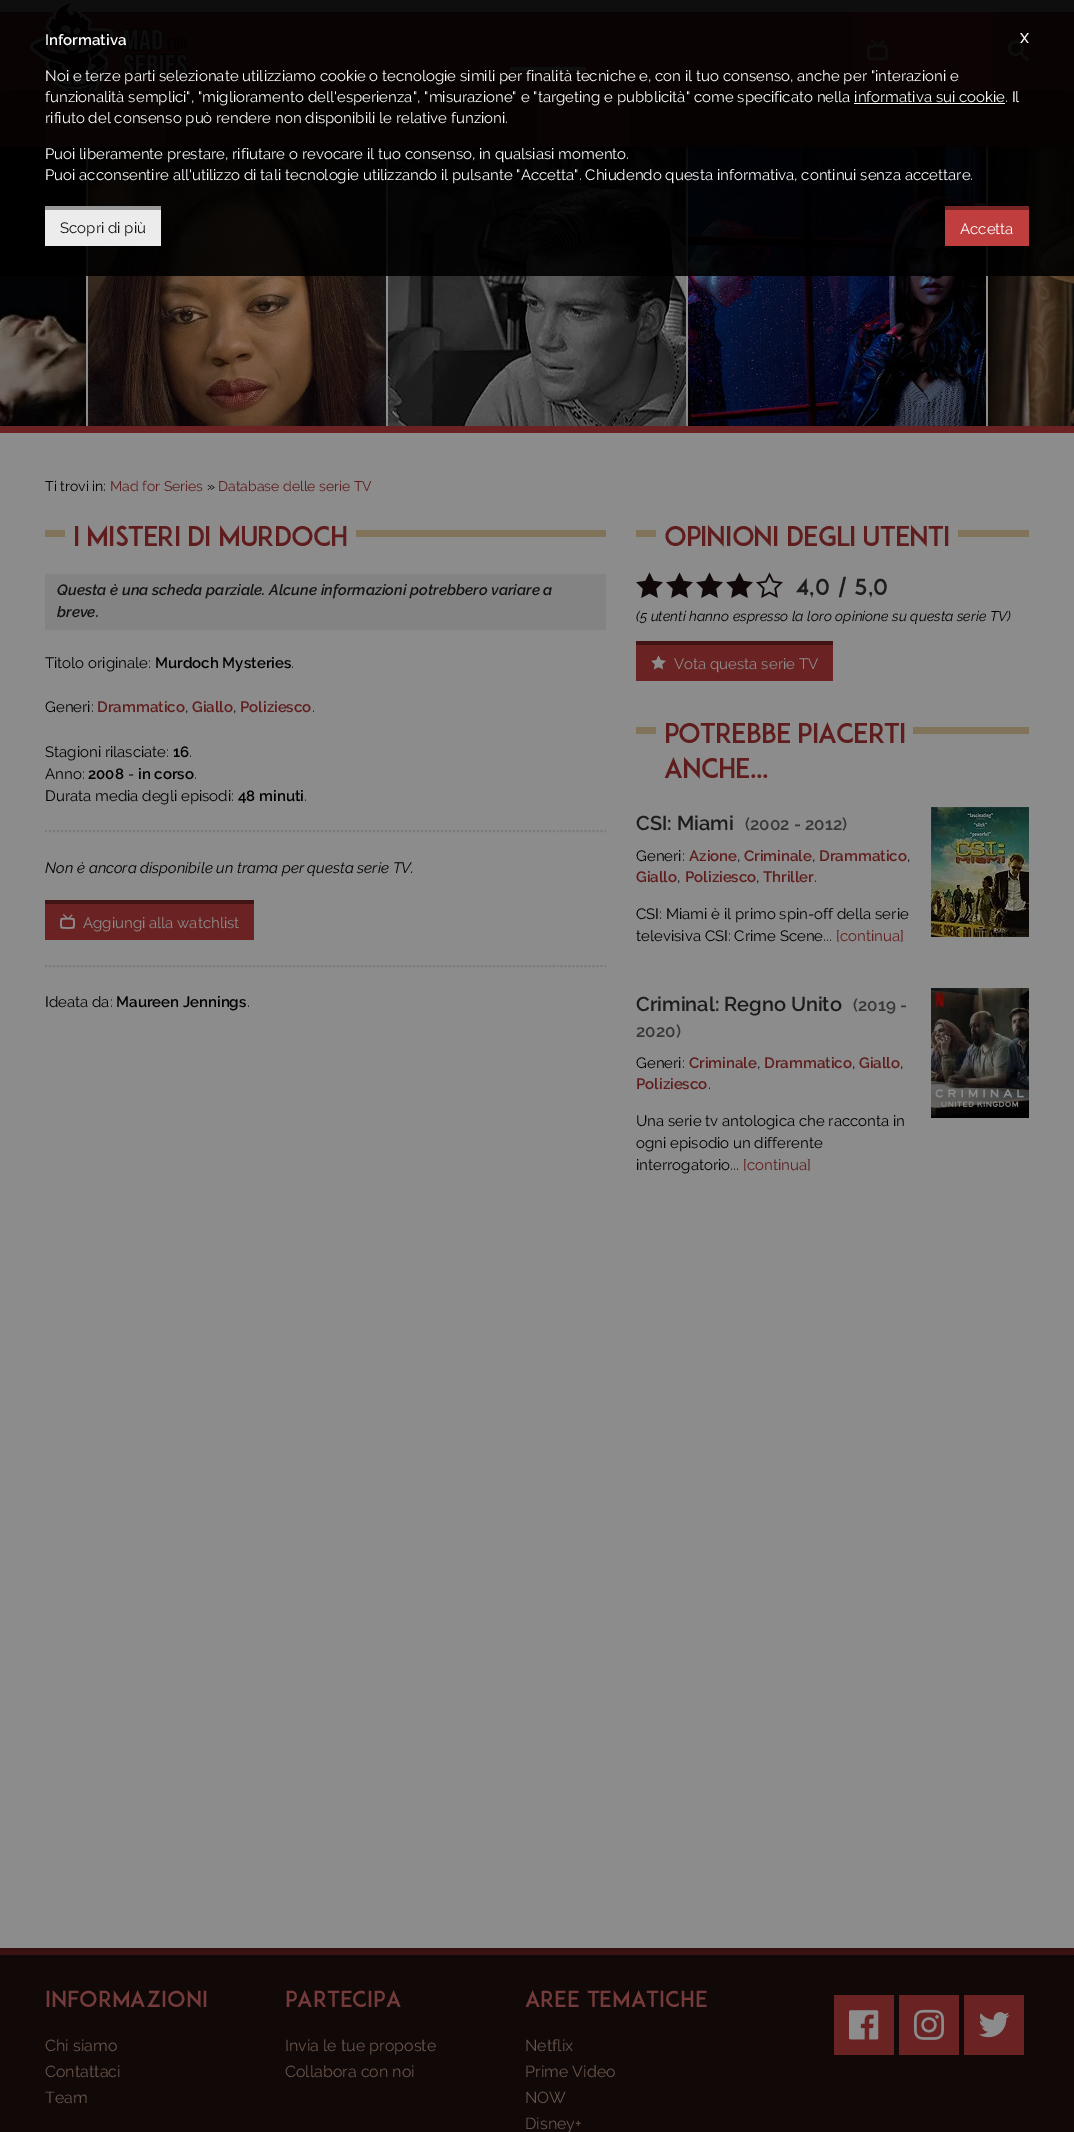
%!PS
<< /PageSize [1074 2132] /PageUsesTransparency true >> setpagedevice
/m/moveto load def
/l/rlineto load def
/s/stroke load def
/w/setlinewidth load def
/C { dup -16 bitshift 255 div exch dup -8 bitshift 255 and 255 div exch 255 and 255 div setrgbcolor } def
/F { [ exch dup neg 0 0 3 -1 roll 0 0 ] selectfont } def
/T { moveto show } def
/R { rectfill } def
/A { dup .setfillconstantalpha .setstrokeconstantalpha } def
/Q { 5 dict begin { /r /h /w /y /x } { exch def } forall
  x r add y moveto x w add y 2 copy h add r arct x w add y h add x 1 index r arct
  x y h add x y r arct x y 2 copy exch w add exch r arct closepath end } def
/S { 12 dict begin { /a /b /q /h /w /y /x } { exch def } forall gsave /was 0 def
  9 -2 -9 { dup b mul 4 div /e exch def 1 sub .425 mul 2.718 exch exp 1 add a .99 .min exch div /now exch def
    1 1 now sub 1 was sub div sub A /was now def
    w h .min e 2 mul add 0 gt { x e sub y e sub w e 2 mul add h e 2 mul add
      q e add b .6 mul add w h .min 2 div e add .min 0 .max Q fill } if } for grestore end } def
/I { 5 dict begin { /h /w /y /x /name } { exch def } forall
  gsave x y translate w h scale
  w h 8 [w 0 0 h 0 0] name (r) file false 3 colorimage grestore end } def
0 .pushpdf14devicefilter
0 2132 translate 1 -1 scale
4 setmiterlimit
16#FFFFFF C
0 0 1074 2132 R
(4.rgb) 0 147 86 279 I
16#8C8C8C C
86 146 2 280 R
(5.rgb) 88 147 298 279 I
386 146 2 280 R
(6.rgb) 388 147 298 279 I
686 146 2 280 R
(7.rgb) 688 147 298 279 I
986 146 2 280 R
(8.rgb) 988 147 86 279 I
16#000000 C
12 113 1050 32 0 5.5 1 S
16#431414 C
0 91 1074 56 R
16#601E1E C
45 91 120 56 R
537 91 92 56 R
16#000000 C
12 22 1050 67 0 5.5 1 S
16#6A2222 C
0 12 1074 79 R
16#8C8C8C C
0 0 1074 12 R
(1.rgb) 30 3 159 88 I
16#762D2D C
852 12 141 79 R
(2.rgb) 867 39 21 22 I
(3.rgb) 1008 40 21 22 I
16#8C8C8C C
510 67 76 4 R
0.9 A
16#000000 C
0 0 1074 276 R
/Raleway-SemiBold 15 F
1 A
16#FFFFFF C
(Informativa) 45 45 T
/Raleway-SemiBold 14 F
(X) 1020 43 T
/Raleway-Regular 15 F
(Noi e terze parti selezionate utilizziamo cookie o tecnologie simili per finalità tecniche e, con il tuo consenso, anche per "interazioni e) 45 81 T
(funzionalità semplici", "miglioramento dell'esperienza", "misurazione" e "targeting e pubblicità" come specificato nella informativa sui cookie. Il) 45 102 T
854 103 151 1 R
(rifiuto del consenso può rendere non disponibili le relative funzioni.) 45 123 T
(Puoi liberamente prestare, rifiutare o revocare il tuo consenso, in qualsiasi momento.) 45 159 T
(Puoi acconsentire all'utilizzo di tali tecnologie utilizzando il pulsante "Accetta". Chiudendo questa informativa, continui senza accettare.) 45 180 T
16#ECECEC C
45 210 116 36 R
16#999999 C
45 206 116 4 R
16#131313 C
(Scopri di più) 60 233 T
16#C13E3E C
945 210 84 36 R
16#792424 C
945 206 84 4 R
16#FFFFFF C
(Accetta) 960 234 T
16#110808 C
0 1955 1074 177 R
16#431414 C
0 1948 1074 7 R
16#000000 C
0 431 1074 1522 0 7 .25 S
16#8C8C8C C
0 433 1074 1515 R
16#6A2222 C
0 426 1074 7 R
/Raleway-Regular 14 F
16#000000 C
(Ti trovi in:) 45 491 T
16#5F1D1D C
(Mad for Series) 110 491 T
16#000000 C
(») 207 491 T
16#5F1D1D C
(Database delle serie TV) 218 491 T
16#80735A C
45 530 561 7 R
16#8C8C8C C
73 530 283 7 R
/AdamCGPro-Regular 27 F
16#5F1D1D C
73 546 m -1 0 (I MISTERI DI MURDOCH) ashow
16#8C8C8C C
65 530 8 7 R
16#838383 C
45 574 561 56 R
/Raleway-SemiBoldItalic 15 F
16#131313 C
(Questa è una scheda parziale. Alcune informazioni potrebbero variare a) 57 595 T
(breve.) 57 617 T
/Raleway-Regular 15 F
16#000000 C
(Titolo originale:) 45 668 T
/Raleway-SemiBold 15 F
(Murdoch Mysteries) 155 668 T
/Raleway-Regular 15 F
(.) 291 668 T
(Generi:) 45 712 T
/Raleway-SemiBold 15 F
16#5F1D1D C
(Drammatico) 97 712 T
/Raleway-Regular 15 F
16#000000 C
(,) 185 712 T
/Raleway-SemiBold 15 F
16#5F1D1D C
(Giallo) 192 712 T
/Raleway-Regular 15 F
16#000000 C
(,) 233 712 T
/Raleway-SemiBold 15 F
16#5F1D1D C
(Poliziesco) 240 712 T
/Raleway-Regular 15 F
16#000000 C
(.) 312 712 T
(Stagioni rilasciate:) 45 757 T
/Raleway-SemiBold 15 F
(16) 173 757 T
/Raleway-Regular 15 F
(.) 189 757 T
(Anno:) 45 779 T
/Raleway-SemiBold 15 F
(2008) 88 779 T
/Raleway-Regular 15 F
(-) 128 779 T
/Raleway-SemiBold 15 F
(in corso) 138 779 T
/Raleway-Regular 15 F
(.) 194 779 T
(Durata media degli episodi:) 45 801 T
/Raleway-SemiBold 15 F
(48 minuti) 238 801 T
/Raleway-Regular 15 F
(.) 304 801 T
16#7A7A7A C
2 w
[2 2] 0 setdash
45 831 m 561 0 l s
/Raleway-Italic 15 F
16#000000 C
(Non è ancora disponibile un trama per questa serie TV.) 45 873 T
16#6A2222 C
45 904 209 36 R
16#431414 C
45 900 209 4 R
(9.rgb) 60 914 15 15 I
/Raleway-Regular 15 F
16#8C8C8C C
(Aggiungi alla watchlist) 83 928 T
16#7A7A7A C
45 966 m 561 0 l s
16#000000 C
(Ideata da:) 45 1007 T
/Raleway-SemiBold 15 F
(Maureen Jennings) 116 1007 T
/Raleway-Regular 15 F
(.) 247 1007 T
16#80735A C
636 530 393 7 R
16#8C8C8C C
664 530 294 7 R
/AdamCGPro-Regular 27 F
16#5F1D1D C
664 546 m -1 0 (OPINIONI DEGLI UTENTI) ashow
16#8C8C8C C
656 530 8 7 R
(10.rgb) 636 572 27 26 I
(10.rgb) 666 572 27 26 I
(10.rgb) 696 572 27 26 I
(10.rgb) 726 572 27 26 I
(11.rgb) 756 572 27 26 I
/AdamCGPro-Regular 22 F
16#1C1C1C C
(4,0 / 5,0) 796 595 T
/Raleway-Italic 14 F
16#000000 C
(\(5 utenti hanno espresso la loro opinione su questa serie TV\)) 636 621 T
16#6A2222 C
636 645 197 36 R
16#431414 C
636 641 197 4 R
(12.rgb) 651 655 15 15 I
/Raleway-Regular 15 F
16#8C8C8C C
(Vota questa serie TV) 674 669 T
16#80735A C
636 727 393 7 R
16#8C8C8C C
664 727 249 7 R
/AdamCGPro-Regular 27 F
16#5F1D1D C
664 743 m -1 0 (POTREBBE PIACERTI) ashow
16#8C8C8C C
656 727 8 7 R
16#5F1D1D C
664 778 m -1 0 (ANCHE...) ashow
/Raleway-SemiBold 20 F
16#1C1C1C C
(CSI: Miami) 636 830 T
/Raleway-SemiBold 17 F
16#383838 C
(\(2002 - 2012\)) 745 830 T
/Raleway-Regular 15 F
16#000000 C
(Generi:) 636 861 T
/Raleway-SemiBold 15 F
16#5F1D1D C
(Azione) 689 861 T
/Raleway-Regular 15 F
16#000000 C
(,) 737 861 T
/Raleway-SemiBold 15 F
16#5F1D1D C
(Criminale) 744 861 T
/Raleway-Regular 15 F
16#000000 C
(,) 812 861 T
/Raleway-SemiBold 15 F
16#5F1D1D C
(Drammatico) 819 861 T
/Raleway-Regular 15 F
16#000000 C
(,) 907 861 T
/Raleway-SemiBold 15 F
16#5F1D1D C
(Giallo) 636 882 T
/Raleway-Regular 15 F
16#000000 C
(,) 677 882 T
/Raleway-SemiBold 15 F
16#5F1D1D C
(Poliziesco) 685 882 T
/Raleway-Regular 15 F
16#000000 C
(,) 756 882 T
/Raleway-SemiBold 15 F
16#5F1D1D C
(Thriller) 763 882 T
/Raleway-Regular 15 F
16#000000 C
(.) 814 882 T
(CSI: Miami è il primo spin-off della serie) 636 919 T
(televisiva CSI: Crime Scene...) 636 941 T
16#5F1D1D C
([continua]) 836 941 T
(13.rgb) 931 807 98 130 I
/Raleway-SemiBold 20 F
16#1C1C1C C
(Criminal: Regno Unito) 636 1011 T
/Raleway-SemiBold 17 F
16#383838 C
(\(2019 -) 853 1011 T
(2020\)) 636 1037 T
/Raleway-Regular 15 F
16#000000 C
(Generi:) 636 1068 T
/Raleway-SemiBold 15 F
16#5F1D1D C
(Criminale) 689 1068 T
/Raleway-Regular 15 F
16#000000 C
(,) 757 1068 T
/Raleway-SemiBold 15 F
16#5F1D1D C
(Drammatico) 764 1068 T
/Raleway-Regular 15 F
16#000000 C
(,) 852 1068 T
/Raleway-SemiBold 15 F
16#5F1D1D C
(Giallo) 859 1068 T
/Raleway-Regular 15 F
16#000000 C
(,) 900 1068 T
/Raleway-SemiBold 15 F
16#5F1D1D C
(Poliziesco) 636 1089 T
/Raleway-Regular 15 F
16#000000 C
(.) 708 1089 T
(Una serie tv antologica che racconta in) 636 1126 T
(ogni episodio un differente) 636 1148 T
(interrogatorio...) 636 1170 T
16#5F1D1D C
([continua]) 743 1170 T
(14.rgb) 931 988 98 130 I
/AdamCGPro-Regular 22 F
16#753B3B C
(Informazioni) 45 2007 T
/Raleway-Regular 16 F
16#66544B C
(Chi siamo) 45 2051 T
(Contattaci) 45 2077 T
(Team) 45 2103 T
/AdamCGPro-Regular 22 F
16#753B3B C
(Partecipa) 285 2007 T
/Raleway-Regular 16 F
16#66544B C
(Invia le tue proposte) 285 2051 T
(Collabora con noi) 285 2077 T
/AdamCGPro-Regular 22 F
16#753B3B C
(Aree tematiche) 525 2007 T
/Raleway-Regular 16 F
16#66544B C
(Netflix) 525 2051 T
(Prime Video) 525 2077 T
(NOW) 525 2103 T
(Disney+) 525 2129 T
16#6A2222 C
834 1995 60 60 R
(15.rgb) 849 2010 30 30 I
899 1995 60 60 R
(16.rgb) 914 2009 30 31 I
964 1995 60 60 R
(17.rgb) 978 2012 32 26 I
.poppdf14devicefilter showpage
